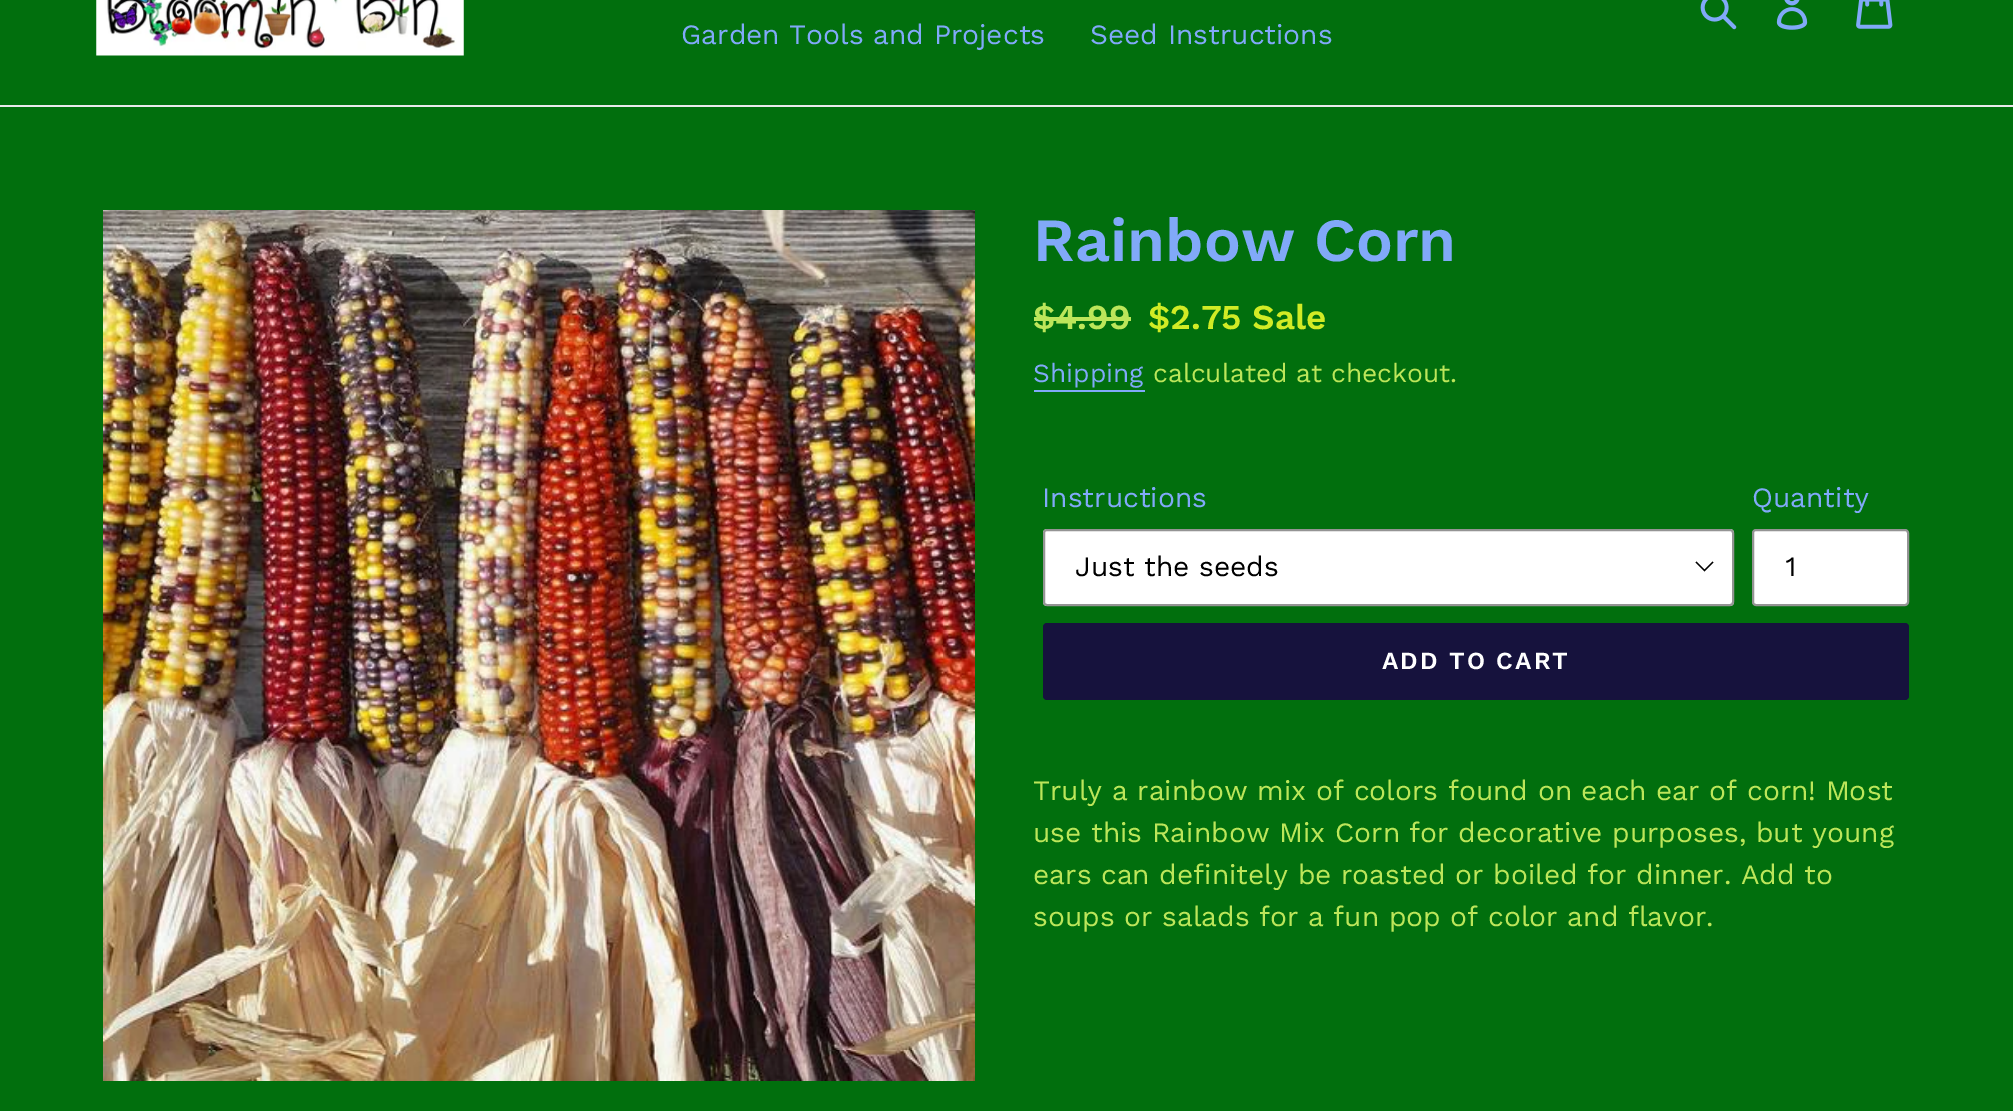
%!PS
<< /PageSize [2013 1111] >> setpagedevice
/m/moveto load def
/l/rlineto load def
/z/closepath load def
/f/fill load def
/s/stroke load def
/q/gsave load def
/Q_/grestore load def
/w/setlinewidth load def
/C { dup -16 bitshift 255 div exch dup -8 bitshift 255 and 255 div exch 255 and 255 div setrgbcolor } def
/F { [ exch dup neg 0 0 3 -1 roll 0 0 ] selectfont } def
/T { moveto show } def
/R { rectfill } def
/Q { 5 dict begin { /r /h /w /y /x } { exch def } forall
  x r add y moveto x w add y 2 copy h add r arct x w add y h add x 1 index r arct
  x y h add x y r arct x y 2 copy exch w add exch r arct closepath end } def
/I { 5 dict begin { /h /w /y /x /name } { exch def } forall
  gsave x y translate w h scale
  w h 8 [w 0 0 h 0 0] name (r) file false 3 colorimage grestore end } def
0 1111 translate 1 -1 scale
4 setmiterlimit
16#016F0D C
0 0 2013 1111 R
16#E8E9EB C
0 105 2013 2 R
(1.rgb) 96 0 368 56 I
(2.rgb) 1700 0 37 30 I
(3.rgb) 1776 0 32 30 I
(4.rgb) 1856 0 37 29 I
/WorkSans-Regular 28 F
16#81A9F8 C
(Garden Tools and Projects) 681 44 T
(Seed Instructions) 1090 44 T
(5.rgb) 103 210 872 871 I
/WorkSans-SemiBold 61.25 F
(Rainbow Corn) 1033 261 T
/WorkSans-SemiBold 35 F
16#BCE65A C
($4.99) 1033 329 T
1034 317 97 4 R
16#D1EB25 C
($2.75 Sale) 1148 329 T
/WorkSans-Regular 26.25 F
16#81A9F8 C
(Shipping) 1033 382 T
1034 390 111 2 R
16#BCE65A C
(calculated at checkout.) 1153 382 T
/WorkSans-Regular 28 F
16#81A9F8 C
(Instructions) 1042 507 T
16#FFFFFF C
1043 529 691 77 4 Q f
16#000000 C
1704.5 571.5 m -9 -9 l 1 -1 l 8 8 l 8 -8 l 1 1 l z f
16#949494 C
2 w
1044 530 689 75 3 Q s
16#000000 C
(Just the seeds) 1075 576 T
16#81A9F8 C
(Quantity) 1752 507 T
16#FFFFFF C
1753 530 155 75 3 Q q f Q_
16#949494 C
s
16#000000 C
(1) 1785 576 T
16#16123D C
1043 623 866 77 4 Q f
/WorkSans-SemiBold 24.5 F
16#FFFFFF C
1382 669 m 2 0 (ADD TO CART) ashow
/WorkSans-Regular 28 F
16#BCE65A C
(Truly a rainbow mix of colors found on each ear of corn! Most) 1033 800 T
(use this Rainbow Mix Corn for decorative purposes, but young) 1033 842 T
(ears can definitely be roasted or boiled for dinner. Add to) 1033 884 T
(soups or salads for a fun pop of color and flavor.) 1033 926 T
showpage
